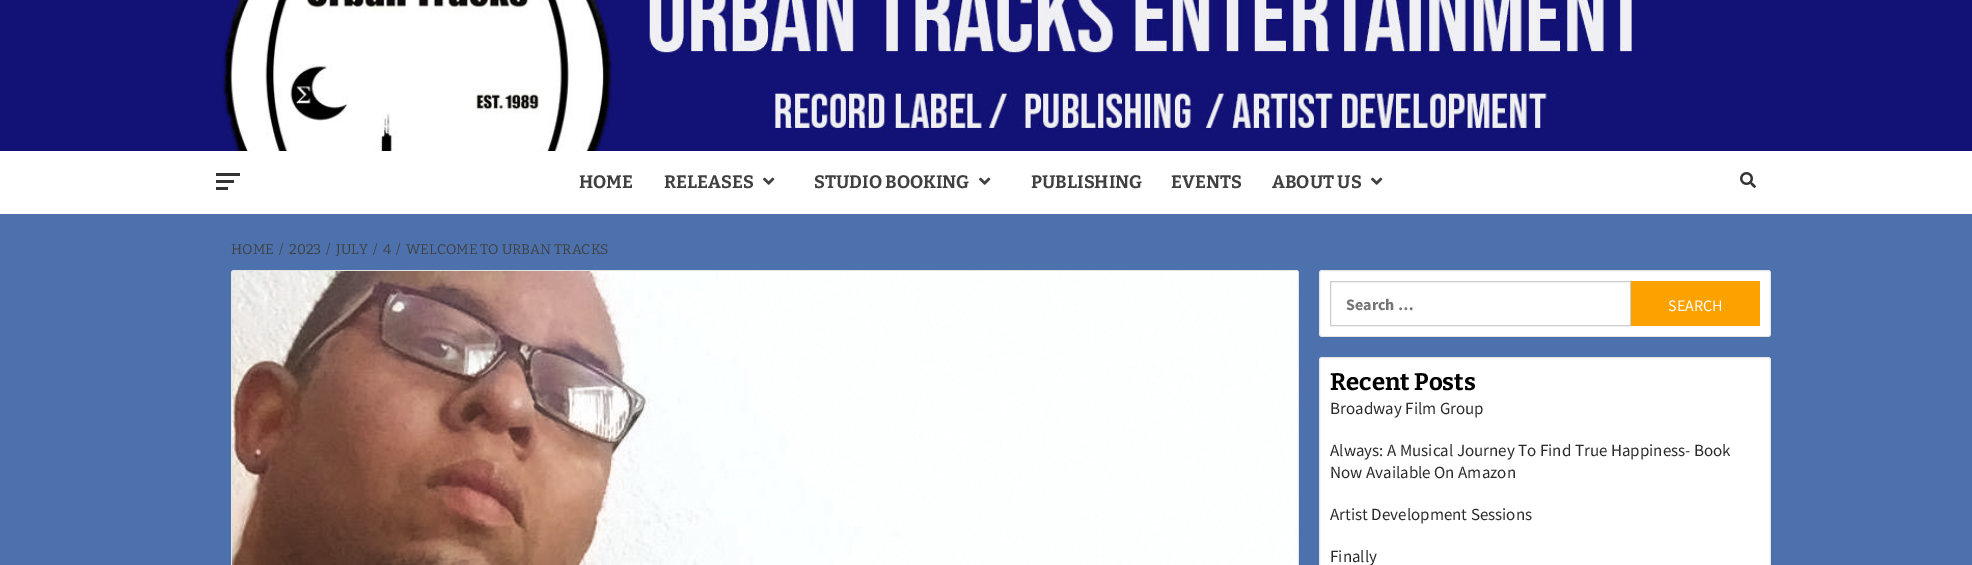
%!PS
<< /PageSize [1972 565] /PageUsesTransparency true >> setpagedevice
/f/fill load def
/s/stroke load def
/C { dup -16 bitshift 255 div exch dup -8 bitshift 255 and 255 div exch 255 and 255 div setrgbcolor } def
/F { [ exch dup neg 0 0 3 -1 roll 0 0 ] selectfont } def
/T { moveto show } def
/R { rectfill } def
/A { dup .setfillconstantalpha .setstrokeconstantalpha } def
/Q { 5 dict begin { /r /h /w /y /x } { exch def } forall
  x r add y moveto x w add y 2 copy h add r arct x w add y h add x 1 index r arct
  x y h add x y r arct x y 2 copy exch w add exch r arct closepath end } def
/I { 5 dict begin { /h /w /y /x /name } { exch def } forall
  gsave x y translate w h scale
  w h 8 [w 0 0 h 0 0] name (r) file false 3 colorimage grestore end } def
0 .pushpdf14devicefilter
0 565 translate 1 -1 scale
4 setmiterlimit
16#4C71AD C
0 0 1972 565 R
(1.rgb) 0 0 1972 151 I
16#FFFFFF C
0 151 1972 63 R
16#333333 C
216 173 24 3 R
216 180 18 3 R
216 187 12 3 R
/Bitter-Bold 18 F
16#404040 C
(HOME) 579 188 T
(RELEASES) 664 188 T
(2.rgb) 763 177 12 8 I
(STUDIO BOOKING) 814 188 T
(2.rgb) 979 177 12 8 I
(PUBLISHING) 1031 188 T
(EVENTS) 1171 188 T
(ABOUT US) 1272 188 T
(2.rgb) 1371 177 12 8 I
(3.rgb) 1740 172 16 16 I
/Bitter-Regular 14 F
(HOME) 231 254 T
(/) 279 254 T
(2023) 289 254 T
(/) 326 254 T
(JULY) 336 254 T
(/) 373 254 T
(4) 383 254 T
(/) 396 254 T
(WELCOME TO URBAN TRACKS) 406 254 T
16#FFFFFF C
231 270 1068 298 3 Q f
0.1 A
16#000101 C
231.5 270.5 1067 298 2.5 Q s
1 A
(4.rgb) 232 271 1066 294 I
16#FFFFFF C
1319 270 452 67 3 Q f
0.1 A
16#000101 C
1319.5 270.5 451 66 2.5 Q s
1 A
16#CCCCCC C
1330.5 281.5 300 44 rectstroke
/SourceSansPro-Bold 16 F
16#757575 C
(Search …) 1346 310 T
16#FBA100 C
1631 281 129 45 R
/SourceSansPro-Regular 16 F
16#FFFFFF C
(SEARCH) 1668 311 T
1319 357 452 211 3 Q f
0.1 A
16#000101 C
1319.5 357.5 451 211 2.5 Q s
/Bitter-Bold 24 F
1 A
16#000000 C
(Recent Posts) 1330 390 T
/SourceSansPro-Regular 17 F
16#2A2A2A C
(Broadway Film Group) 1330 414 T
(Always: A Musical Journey To Find True Happiness- Book) 1330 456 T
(Now Available On Amazon) 1330 478 T
(Artist Development Sessions) 1330 520 T
(Finally) 1330 562 T
.poppdf14devicefilter showpage
